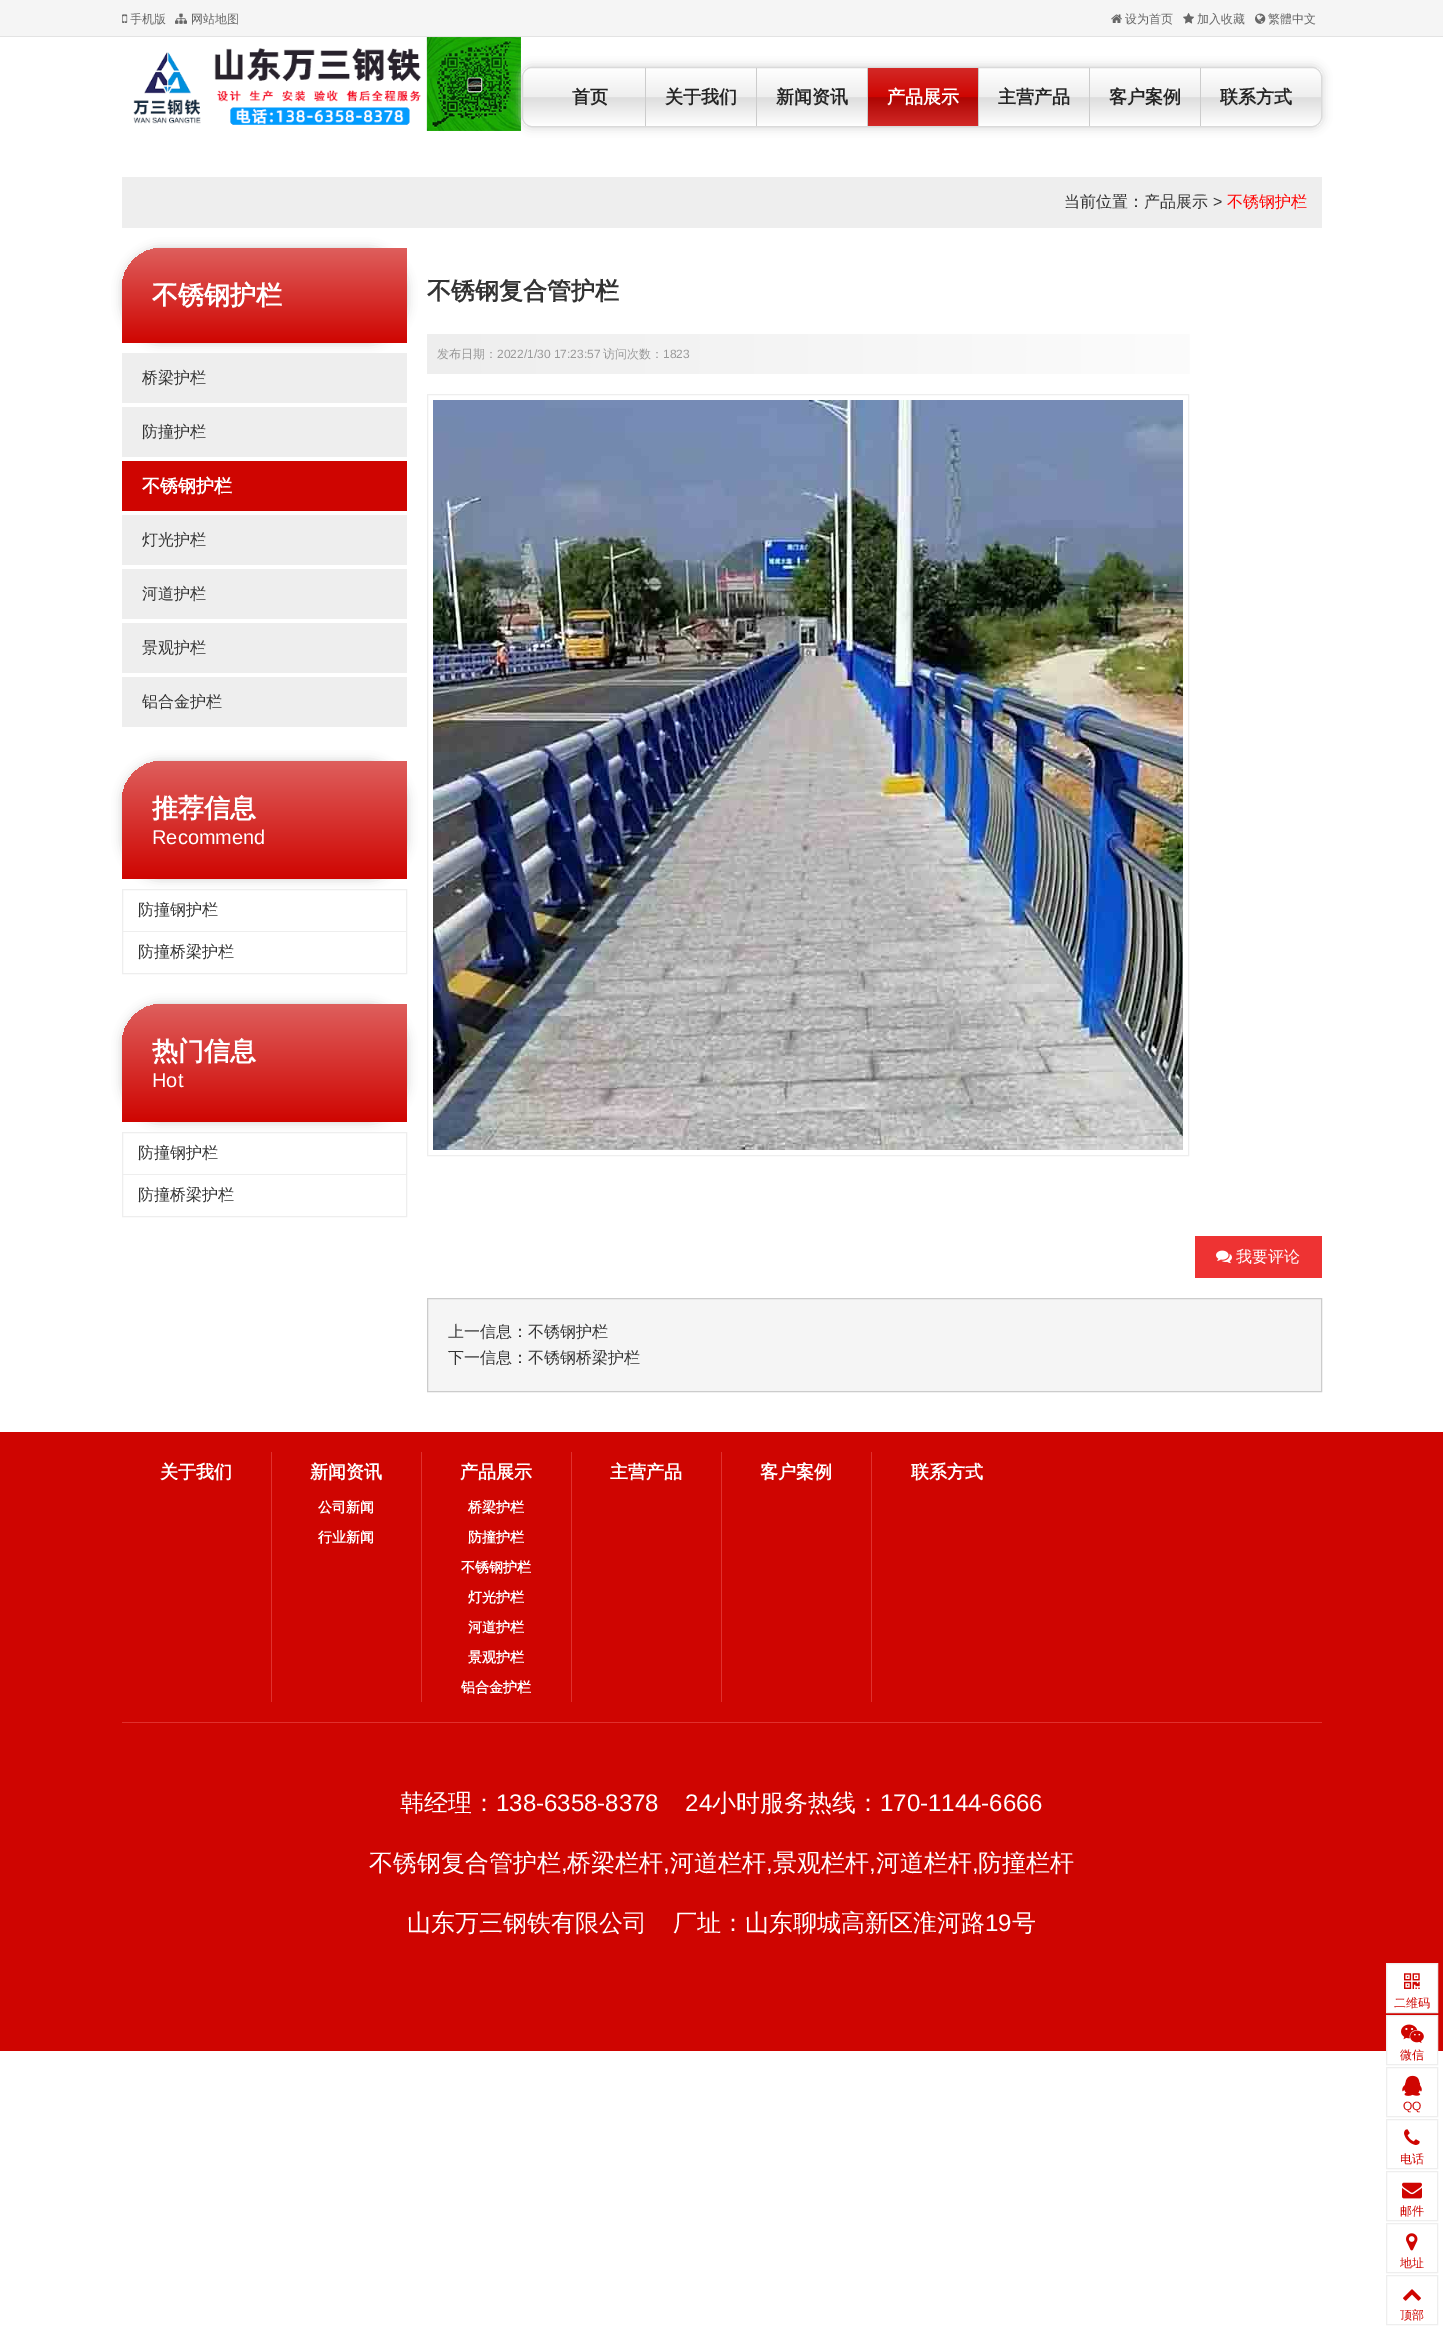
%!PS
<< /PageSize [1443 2332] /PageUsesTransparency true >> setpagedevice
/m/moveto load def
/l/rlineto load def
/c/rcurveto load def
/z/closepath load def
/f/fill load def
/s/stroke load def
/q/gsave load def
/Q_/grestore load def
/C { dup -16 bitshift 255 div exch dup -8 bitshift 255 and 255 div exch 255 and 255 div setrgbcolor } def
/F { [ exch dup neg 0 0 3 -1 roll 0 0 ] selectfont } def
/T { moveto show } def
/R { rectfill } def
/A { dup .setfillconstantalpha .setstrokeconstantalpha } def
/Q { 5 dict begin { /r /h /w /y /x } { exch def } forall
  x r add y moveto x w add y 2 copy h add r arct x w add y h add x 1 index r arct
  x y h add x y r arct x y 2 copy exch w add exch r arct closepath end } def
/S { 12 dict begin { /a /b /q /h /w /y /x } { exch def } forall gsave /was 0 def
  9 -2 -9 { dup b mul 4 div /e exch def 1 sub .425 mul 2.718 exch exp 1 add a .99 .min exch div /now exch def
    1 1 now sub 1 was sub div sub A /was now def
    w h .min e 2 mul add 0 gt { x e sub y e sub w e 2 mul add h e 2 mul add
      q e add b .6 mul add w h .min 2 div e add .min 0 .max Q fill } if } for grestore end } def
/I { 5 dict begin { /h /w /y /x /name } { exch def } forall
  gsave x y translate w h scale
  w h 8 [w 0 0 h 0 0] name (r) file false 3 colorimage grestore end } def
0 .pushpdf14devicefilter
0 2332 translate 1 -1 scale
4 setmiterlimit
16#FFFFFF C
0 0 1443 2332 R
16#F5F5F5 C
0 0 1443 36 R
16#E3E3E3 C
0 36 1443 1 R
(1.rgb) 122 14 6 9 I
/WenQuanYiZenHei-Medium 12 F
16#666666 C
(手机版) 130 23 T
(2.rgb) 175 13 12 11 I
(网站地图) 191 23 T
(3.rgb) 1111 14 11 9 I
(设为首页) 1125 23 T
(4.rgb) 1183 13 11 11 I
(加入收藏) 1197 23 T
(5.rgb) 1255 13 11 11 I
(繁體中文) 1268 23 T
(6.rgb) 133 37 388 94 I
16#CCCCCC C
522 67 800 60 10 5 1 S
q
522 67 800 60 10 Q clip newpath
q 522 68 m 800 0 l 0 58 l -800 0 l z clip newpath
<< /ShadingType 2 /ColorSpace /DeviceRGB /Coords [922 68 922 126] /Extend [true true] /Function << /FunctionType 3 /Domain [0 1] /Functions [<< /FunctionType 2 /Domain [0 1] /C0 [1 1 1] /C1 [.933 .933 .933] /N 1 >> << /FunctionType 2 /Domain [0 1] /C0 [.933 .933 .933] /C1 [.867 .867 .867] /N 1 >> << /FunctionType 2 /Domain [0 1] /C0 [.867 .867 .867] /C1 [1 1 1] /N 1 >>] /Bounds [.5 .51] /Encode [0 1 0 1 0 1] >> >> shfill Q_
Q_
16#DADADA C
522.5 67.5 799 59 9.5 Q s
16#CCCCCC C
645 68 1 58 R
/WenQuanYiZenHei-Bold 18 F
16#242424 C
(首页) 572 103 T
16#CCCCCC C
756 68 1 58 R
16#242424 C
(关于我们) 665 103 T
16#CCCCCC C
867 68 1 58 R
16#242424 C
(新闻资讯) 776 103 T
16#CCCCCC C
978 68 1 58 R
q 868 68 m 110 0 l 0 58 l -110 0 l z clip newpath
<< /ShadingType 2 /ColorSpace /DeviceRGB /Coords [923 68 923 126] /Extend [true true] /Function << /FunctionType 3 /Domain [0 1] /Functions [<< /FunctionType 2 /Domain [0 1] /C0 [.827 .161 .153] /C1 [.812 .02 .004] /N 1 >> << /FunctionType 2 /Domain [0 1] /C0 [.812 .02 .004] /C1 [.678 .02 .012] /N 1 >> << /FunctionType 2 /Domain [0 1] /C0 [.678 .02 .012] /C1 [.827 .161 .153] /N 1 >>] /Bounds [.5 .51] /Encode [0 1 0 1 0 1] >> >> shfill Q_
16#FFFFFF C
(产品展示) 887 103 T
16#CCCCCC C
1089 68 1 58 R
16#242424 C
(主营产品) 998 103 T
16#CCCCCC C
1200 68 1 58 R
16#242424 C
(客户案例) 1109 103 T
(联系方式) 1220 103 T
16#EEEEEE C
122 177 1200 51 R
/WenQuanYiZenHei-Medium 16 F
16#333333 C
(当前位置：产品展示) 1064 207 T
/LiberationSans-Regular 16 F
(>) 1213 207 T
/WenQuanYiZenHei-Medium 16 F
16#FF0000 C
(不锈钢护栏) 1227 207 T
16#CCCCCC C
122 248 285 95 40 5 1 S
q 162 248 m 245 0 l 0 95 l -285 0 l 0 -55 l 0 -22 18 -40 40 -40 c z clip newpath
<< /ShadingType 2 /ColorSpace /DeviceRGB /Coords [265 248 265 343] /Extend [true true] /Function << /FunctionType 2 /Domain [0 1] /C0 [.871 .373 .365] /C1 [.812 .02 .004] /N 1 >> >> shfill Q_
/WenQuanYiZenHei-Bold 26 F
16#FFFFFF C
(不锈钢护栏) 152 304 T
16#EEEEEE C
122 353 285 50 R
/WenQuanYiZenHei-Medium 16 F
16#333333 C
(桥梁护栏) 142 383 T
16#EEEEEE C
122 407 285 50 R
16#333333 C
(防撞护栏) 142 437 T
16#CF0501 C
122 461 285 50 R
/WenQuanYiZenHei-Bold 18 F
16#FFFFFF C
(不锈钢护栏) 142 492 T
16#EEEEEE C
122 515 285 50 R
/WenQuanYiZenHei-Medium 16 F
16#333333 C
(灯光护栏) 142 545 T
16#EEEEEE C
122 569 285 50 R
16#333333 C
(河道护栏) 142 599 T
16#EEEEEE C
122 623 285 50 R
16#333333 C
(景观护栏) 142 653 T
16#EEEEEE C
122 677 285 50 R
16#333333 C
(铝合金护栏) 142 707 T
16#CCCCCC C
122 761 285 118 40 5 1 S
q 162 761 m 245 0 l 0 118 l -285 0 l 0 -78 l 0 -22 18 -40 40 -40 c z clip newpath
<< /ShadingType 2 /ColorSpace /DeviceRGB /Coords [265 761 265 879] /Extend [true true] /Function << /FunctionType 2 /Domain [0 1] /C0 [.871 .373 .365] /C1 [.812 .02 .004] /N 1 >> >> shfill Q_
/WenQuanYiZenHei-Bold 26 F
16#FFFFFF C
(推荐信息) 152 817 T
/LiberationSans-Regular 20 F
(Recommend) 152 844 T
16#EEEEEE C
122.5 889.5 284 84 rectstroke
123 931 283 1 R
/WenQuanYiZenHei-Medium 16 F
16#333333 C
(防撞钢护栏) 138 915 T
(防撞桥梁护栏) 138 957 T
16#CCCCCC C
122 1004 285 118 40 5 1 S
q 162 1004 m 245 0 l 0 118 l -285 0 l 0 -78 l 0 -22 18 -40 40 -40 c z clip newpath
<< /ShadingType 2 /ColorSpace /DeviceRGB /Coords [265 1004 265 1122] /Extend [true true] /Function << /FunctionType 2 /Domain [0 1] /C0 [.871 .373 .365] /C1 [.812 .02 .004] /N 1 >> >> shfill Q_
/WenQuanYiZenHei-Bold 26 F
16#FFFFFF C
(热门信息) 152 1060 T
/LiberationSans-Regular 20 F
(Hot) 152 1087 T
16#EEEEEE C
122.5 1132.5 284 84 rectstroke
123 1174 283 1 R
/WenQuanYiZenHei-Medium 16 F
16#333333 C
(防撞钢护栏) 138 1158 T
(防撞桥梁护栏) 138 1200 T
/WenQuanYiZenHei-Bold 24 F
(不锈钢复合管护栏) 427 299 T
q 427 334 m 763 0 l 0 40 l -763 0 l z clip newpath
<< /ShadingType 2 /ColorSpace /DeviceRGB /Coords [427 354 1322 354] /Extend [true true] /Function << /FunctionType 2 /Domain [0 1] /C0 [.933 .933 .933] /C1 [1 1 1] /N 1 >> >> shfill Q_
/WenQuanYiZenHei-Medium 12 F
16#999999 C
(发布日期：) 437 358 T
/LiberationSans-Regular 12 F
(2022/1/30 17:23:57) 497 358 T
/WenQuanYiZenHei-Medium 12 F
(访问次数：) 603 358 T
/LiberationSans-Regular 12 F
(1823) 663 358 T
16#EEEEEE C
427.5 394.5 761 761 rectstroke
(7.rgb) 433 400 750 750 I
16#EE3333 C
1195 1236 127 42 R
(8.rgb) 1216 1250 16 14 I
/WenQuanYiZenHei-Medium 16 F
16#FFFFFF C
(我要评论) 1236 1262 T
16#F5F5F5 C
427.5 1298.5 m 894 0 l 0 93 l -894 0 l z q f Q_
16#CCCCCC C
s
16#333333 C
(上一信息：不锈钢护栏) 448 1337 T
(下一信息：不锈钢桥梁护栏) 448 1363 T
16#CF0501 C
0 1432 1443 619 R
16#E0312E C
122 1722 1200 1 R
271 1452 1 250 R
/WenQuanYiZenHei-Bold 18 F
16#FFFFFF C
(关于我们) 160 1478 T
16#E0312E C
421 1452 1 250 R
16#FFFFFF C
(新闻资讯) 310 1478 T
/WenQuanYiZenHei-Bold 14 F
(公司新闻) 318 1512 T
(行业新闻) 318 1542 T
16#E0312E C
571 1452 1 250 R
/WenQuanYiZenHei-Bold 18 F
16#FFFFFF C
(产品展示) 460 1478 T
/WenQuanYiZenHei-Bold 14 F
(桥梁护栏) 468 1512 T
(防撞护栏) 468 1542 T
(不锈钢护栏) 461 1572 T
(灯光护栏) 468 1602 T
(河道护栏) 468 1632 T
(景观护栏) 468 1662 T
(铝合金护栏) 461 1692 T
16#E0312E C
721 1452 1 250 R
/WenQuanYiZenHei-Bold 18 F
16#FFFFFF C
(主营产品) 610 1478 T
16#E0312E C
871 1452 1 250 R
16#FFFFFF C
(客户案例) 760 1478 T
(联系方式) 911 1478 T
/WenQuanYiZenHei-Medium 24 F
(韩经理：) 400 1811 T
/LiberationSans-Regular 24 F
(138-6358-8378    24) 496 1811 T
/WenQuanYiZenHei-Medium 24 F
(小时服务热线：) 712 1811 T
/LiberationSans-Regular 24 F
(170-1144-6666) 880 1811 T
/WenQuanYiZenHei-Medium 24 F
(不锈钢复合管护栏) 369 1871 T
/LiberationSans-Regular 24 F
(,) 561 1871 T
/WenQuanYiZenHei-Medium 24 F
(桥梁栏杆) 567 1871 T
/LiberationSans-Regular 24 F
(,) 663 1871 T
/WenQuanYiZenHei-Medium 24 F
(河道栏杆) 670 1871 T
/LiberationSans-Regular 24 F
(,) 766 1871 T
/WenQuanYiZenHei-Medium 24 F
(景观栏杆) 773 1871 T
/LiberationSans-Regular 24 F
(,) 869 1871 T
/WenQuanYiZenHei-Medium 24 F
(河道栏杆) 876 1871 T
/LiberationSans-Regular 24 F
(,) 972 1871 T
/WenQuanYiZenHei-Medium 24 F
(防撞栏杆) 978 1871 T
(山东万三钢铁有限公司) 407 1931 T
(厂址：山东聊城高新区淮河路) 673 1931 T
/LiberationSans-Regular 24 F
(19) 985 1931 T
/WenQuanYiZenHei-Medium 24 F
(号) 1012 1931 T
1386.5 1963.5 m 51 0 l 0 49 l -51 0 l z q f Q_
16#EEEEEE C
s
(9.rgb) 1404 1973 16 16 I
/WenQuanYiZenHei-Medium 12 F
16#CF0501 C
(二维码) 1394 2007 T
16#FFFFFF C
1387 2016 50 35 R
16#EEEEEE C
1386.5 2015.5 51 49 rectstroke
(10.rgb) 1401 2024 23 19 I
16#CF0501 C
(微信) 1400 2059 T
16#EEEEEE C
1386.5 2067.5 51 49 rectstroke
(11.rgb) 1402 2075 20 21 I
/LiberationSans-Regular 12 F
16#CF0501 C
(QQ) 1403 2110 T
16#EEEEEE C
1386.5 2119.5 51 49 rectstroke
(12.rgb) 1404 2129 16 16 I
/WenQuanYiZenHei-Medium 12 F
16#CF0501 C
(电话) 1400 2163 T
16#EEEEEE C
1386.5 2171.5 51 49 rectstroke
(13.rgb) 1402 2182 20 17 I
16#CF0501 C
(邮件) 1400 2215 T
16#EEEEEE C
1386.5 2223.5 51 49 rectstroke
(14.rgb) 1406 2233 12 18 I
16#CF0501 C
(地址) 1400 2267 T
16#EEEEEE C
1386.5 2275.5 51 49 rectstroke
(15.rgb) 1403 2289 18 12 I
16#CF0501 C
(顶部) 1400 2319 T
.poppdf14devicefilter showpage
